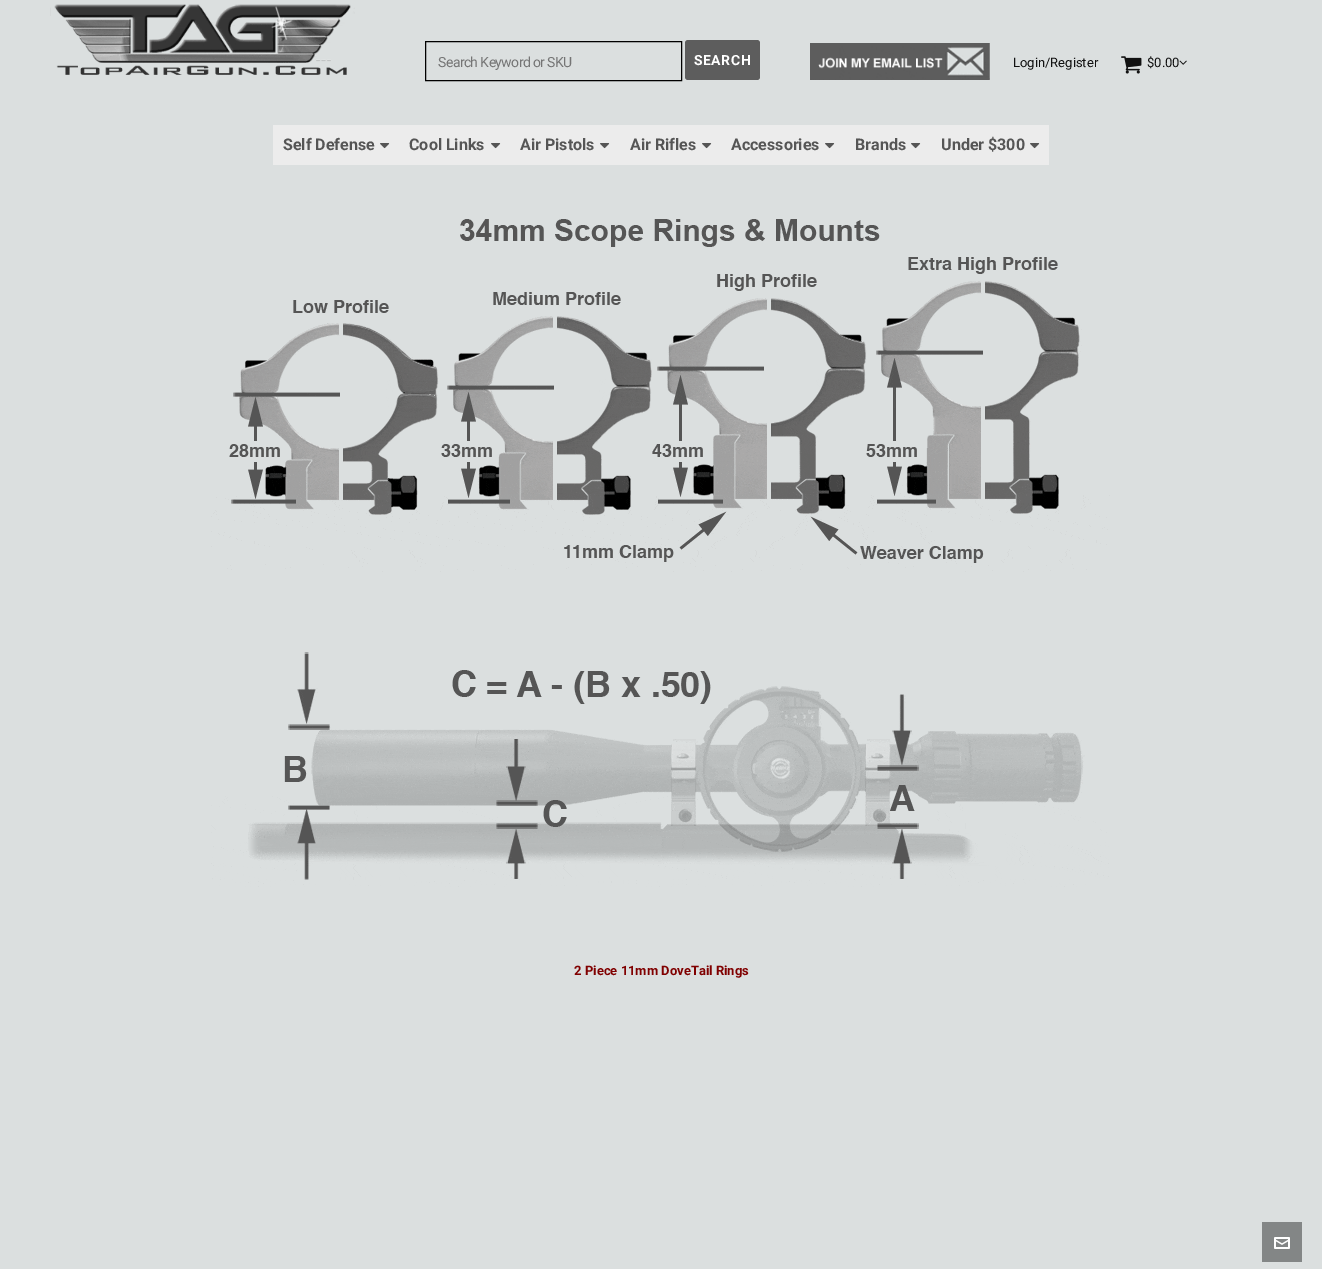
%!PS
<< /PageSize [1322 1269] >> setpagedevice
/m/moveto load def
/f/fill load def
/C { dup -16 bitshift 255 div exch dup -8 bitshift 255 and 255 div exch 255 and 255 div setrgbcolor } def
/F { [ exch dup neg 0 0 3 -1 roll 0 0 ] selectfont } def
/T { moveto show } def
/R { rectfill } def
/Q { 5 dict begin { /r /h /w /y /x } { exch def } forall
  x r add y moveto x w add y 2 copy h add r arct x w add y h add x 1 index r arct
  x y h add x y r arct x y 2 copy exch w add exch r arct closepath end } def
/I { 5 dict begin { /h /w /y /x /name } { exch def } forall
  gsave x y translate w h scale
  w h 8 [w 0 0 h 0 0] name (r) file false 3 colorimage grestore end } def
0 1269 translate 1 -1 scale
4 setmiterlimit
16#DBDFDF C
0 0 1322 1269 R
(1.rgb) 50 4 305 71 I
16#000000 C
425.5 41.5 256 39 rectstroke
/Roboto-Regular 14 F
16#757575 C
438 67 m -.6 0 (Search Keyword or SKU) ashow
16#5D5D5D C
685 40 75 40 3 Q f
/Roboto-Bold 14 F
16#FFFFFF C
694 65 m .5 0 (SEARCH) ashow
(2.rgb) 810 43 180 37 I
/Roboto-Regular 13 F
16#111111 C
(Login/Register) 1013 67 T
(3.rgb) 1121 56 21 18 I
($0.00) 1147 67 T
(4.rgb) 1179 60 8 5 I
16#ECECEC C
273 125 126 40 R
/Roboto-Bold 16 F
16#555555 C
(Self Defense) 283 150 T
(5.rgb) 380 143 10 6 I
16#ECECEC C
399 125 650 40 R
16#555555 C
(Cool Links) 409 150 T
(5.rgb) 491 143 10 6 I
(Air Pistols) 520 150 T
(5.rgb) 600 143 10 6 I
(Air Rifles) 630 150 T
(5.rgb) 702 143 10 6 I
(Accessories) 731 150 T
(5.rgb) 825 143 10 6 I
(Brands) 855 150 T
(5.rgb) 911 143 10 6 I
(Under $300) 941 150 T
(5.rgb) 1030 143 10 6 I
(6.rgb) 211 219 899 353 I
(7.rgb) 211 652 898 235 I
/Roboto-Bold 13 F
16#800000 C
(2 Piece 11mm DoveTail Rings) 574 975 T
16#838686 C
1262 1222 40 40 R
(8.rgb) 1274 1237 16 12 I
showpage
